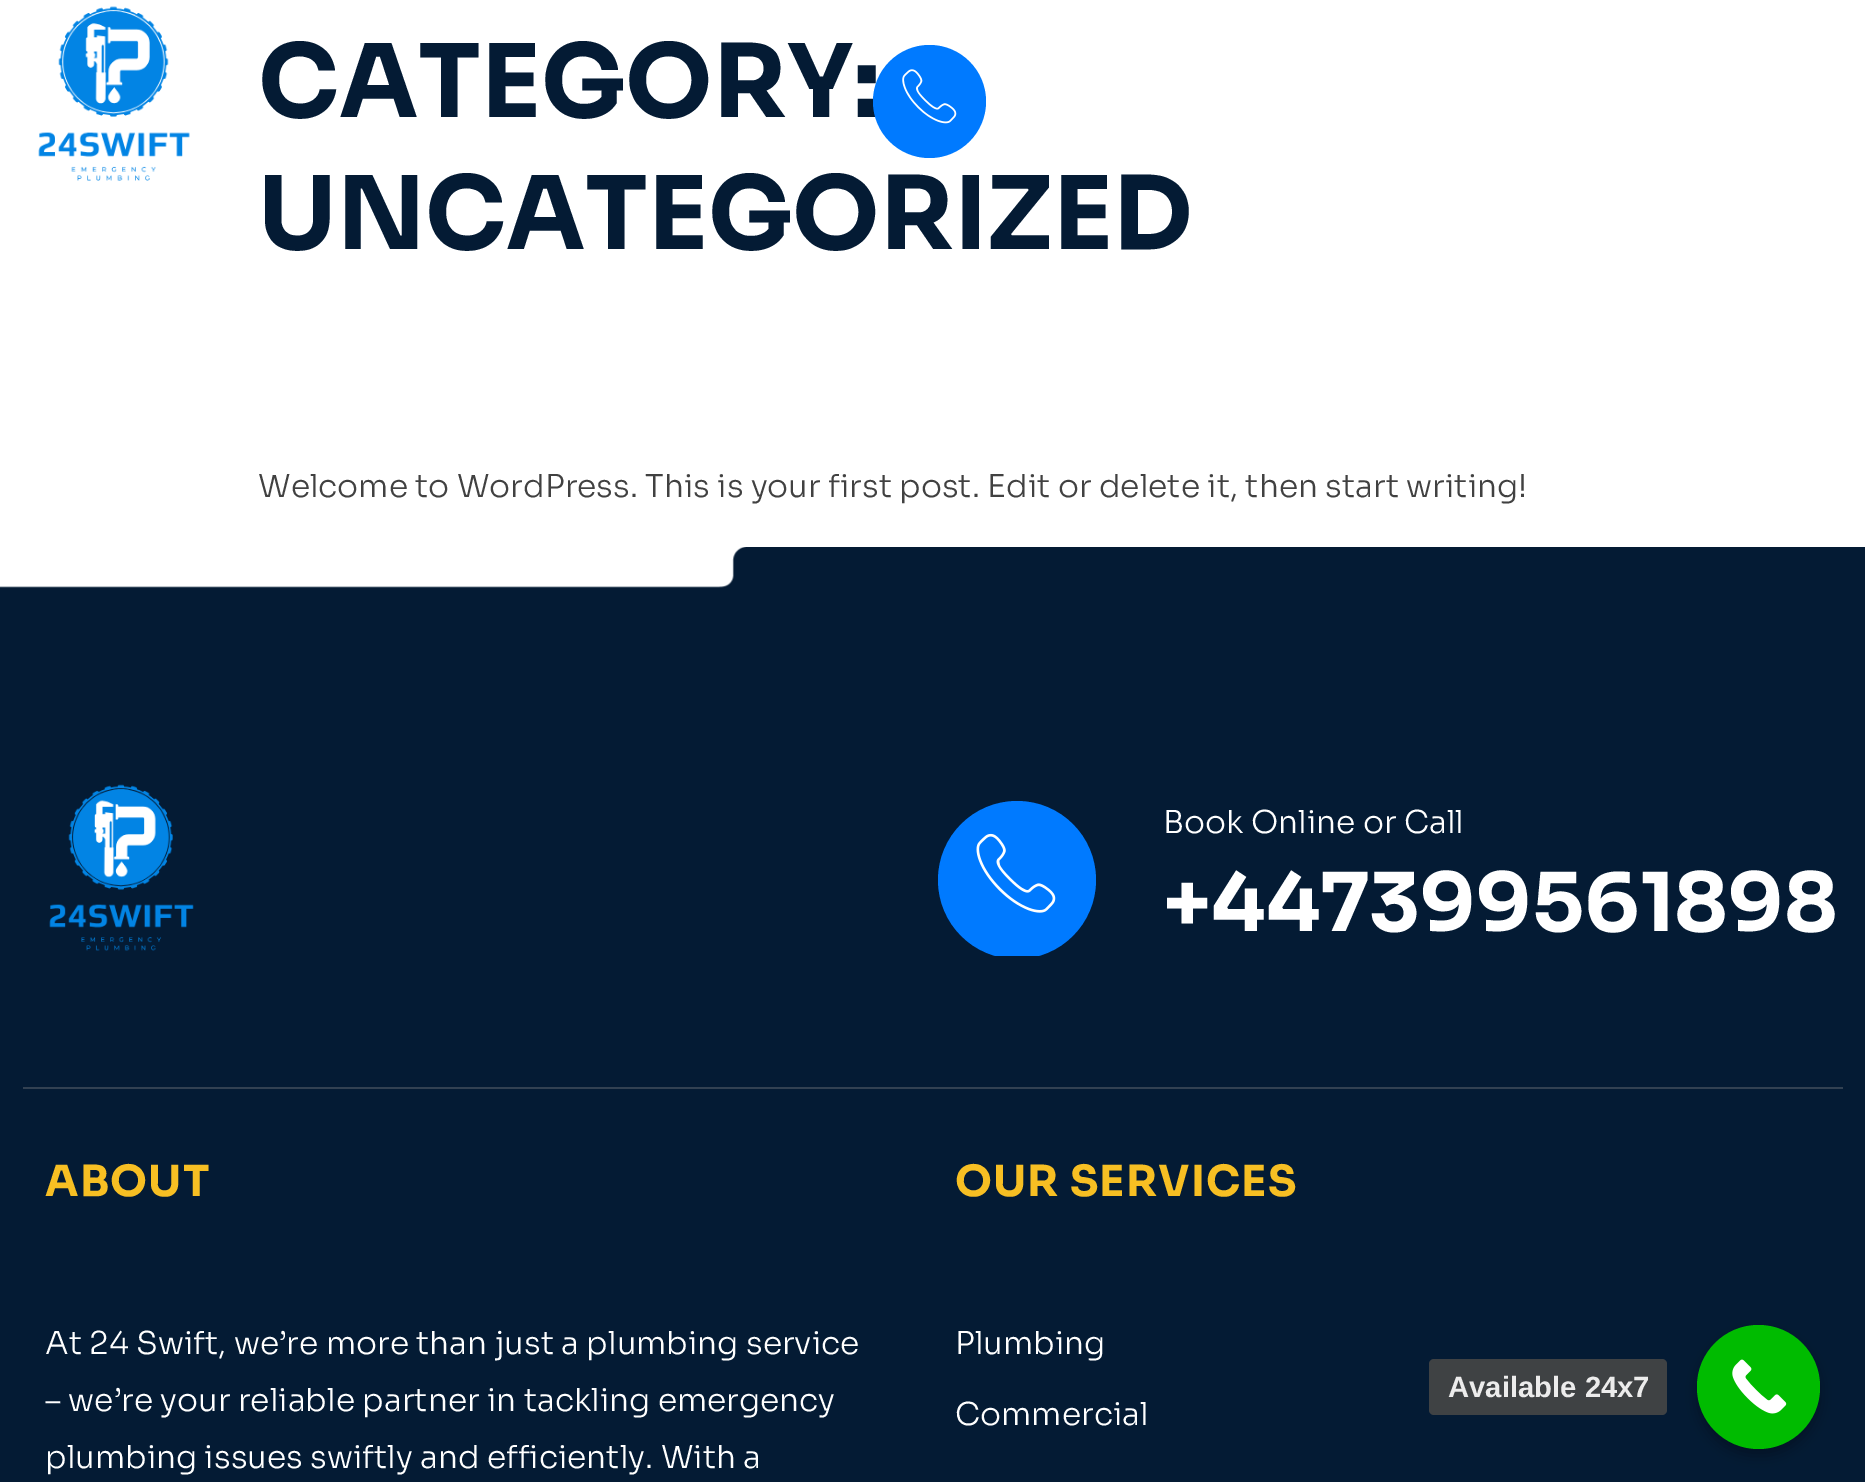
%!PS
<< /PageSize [1865 1482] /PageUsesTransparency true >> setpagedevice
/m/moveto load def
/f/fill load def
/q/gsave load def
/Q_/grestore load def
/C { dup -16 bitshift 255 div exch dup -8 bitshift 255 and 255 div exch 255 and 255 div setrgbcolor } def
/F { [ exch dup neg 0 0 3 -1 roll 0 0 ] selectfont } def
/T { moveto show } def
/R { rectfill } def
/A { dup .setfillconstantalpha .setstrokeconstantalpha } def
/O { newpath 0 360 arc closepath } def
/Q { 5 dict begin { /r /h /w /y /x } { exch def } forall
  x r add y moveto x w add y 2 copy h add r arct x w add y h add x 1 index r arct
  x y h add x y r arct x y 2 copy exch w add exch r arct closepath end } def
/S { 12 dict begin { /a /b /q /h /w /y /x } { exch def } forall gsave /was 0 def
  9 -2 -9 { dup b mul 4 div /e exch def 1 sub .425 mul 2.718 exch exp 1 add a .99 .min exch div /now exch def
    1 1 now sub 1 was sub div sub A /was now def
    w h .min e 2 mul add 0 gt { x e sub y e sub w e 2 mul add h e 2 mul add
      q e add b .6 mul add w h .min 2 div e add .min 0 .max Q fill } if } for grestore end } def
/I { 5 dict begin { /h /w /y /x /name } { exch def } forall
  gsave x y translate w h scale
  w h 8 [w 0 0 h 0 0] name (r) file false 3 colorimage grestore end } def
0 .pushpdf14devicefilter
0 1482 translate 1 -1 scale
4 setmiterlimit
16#FFFFFF C
0 0 1865 1482 R
(1.rgb) 38 6 152 175 I
/Sora-Bold 101.25 F
16#041B34 C
(CATEGORY:) 258 117 T
16#007AFF C
929.5 101.5 56.5 O f
(2.rgb) 902 69 55 55 I
16#041B34 C
(UNCATEGORIZED) 258 249 T
/Sora-Light 31.5 F
16#414141 C
(Welcome to WordPress. This is your first post. Edit or delete it, then start writing!) 258 497 T
16#041B34 C
0 547 1865 935 R
(3.rgb) 0 547 746 41 I
16#324152 C
23 1087 1820 2 R
(4.rgb) 49 784 145 167 I
q
938 794 900 162 rectclip
16#007AFF C
1017 880 79 O f
Q_
(5.rgb) 976 833 80 80 I
16#FFFFFF C
(Book Online or Call) 1163 833 T
/Sora-Bold 81 F
(+447399561898) 1163 931 T
/Sora-Bold 42.75 F
16#F7BF23 C
45 1196 m 1.1 0 (ABOUT) ashow
/Sora-Light 31.5 F
16#FFFFFF C
(At 24 Swift, we’re more than just a plumbing service) 45 1354 T
(– we’re your reliable partner in tackling emergency) 45 1411 T
(plumbing issues swiftly and efficiently. With a) 45 1468 T
/Sora-Bold 42.75 F
16#F7BF23 C
955 1196 m 1.1 0 (OUR SERVICES) ashow
/Sora-Light 31.5 F
16#FFFFFF C
(Plumbing) 955 1354 T
(Commercial) 955 1425 T
16#000000 C
1697 1332 123 124 61.5 7 .3 S
16#00BB00 C
1697 1325 123 124 61.5 Q f
(6.rgb) 1732 1359 55 55 I
16#3F4244 C
1429 1359 238 56 5 Q f
/LiberationSans-Bold 29.25 F
16#ECECEC C
(Available 24x7) 1448 1397 T
.poppdf14devicefilter showpage
